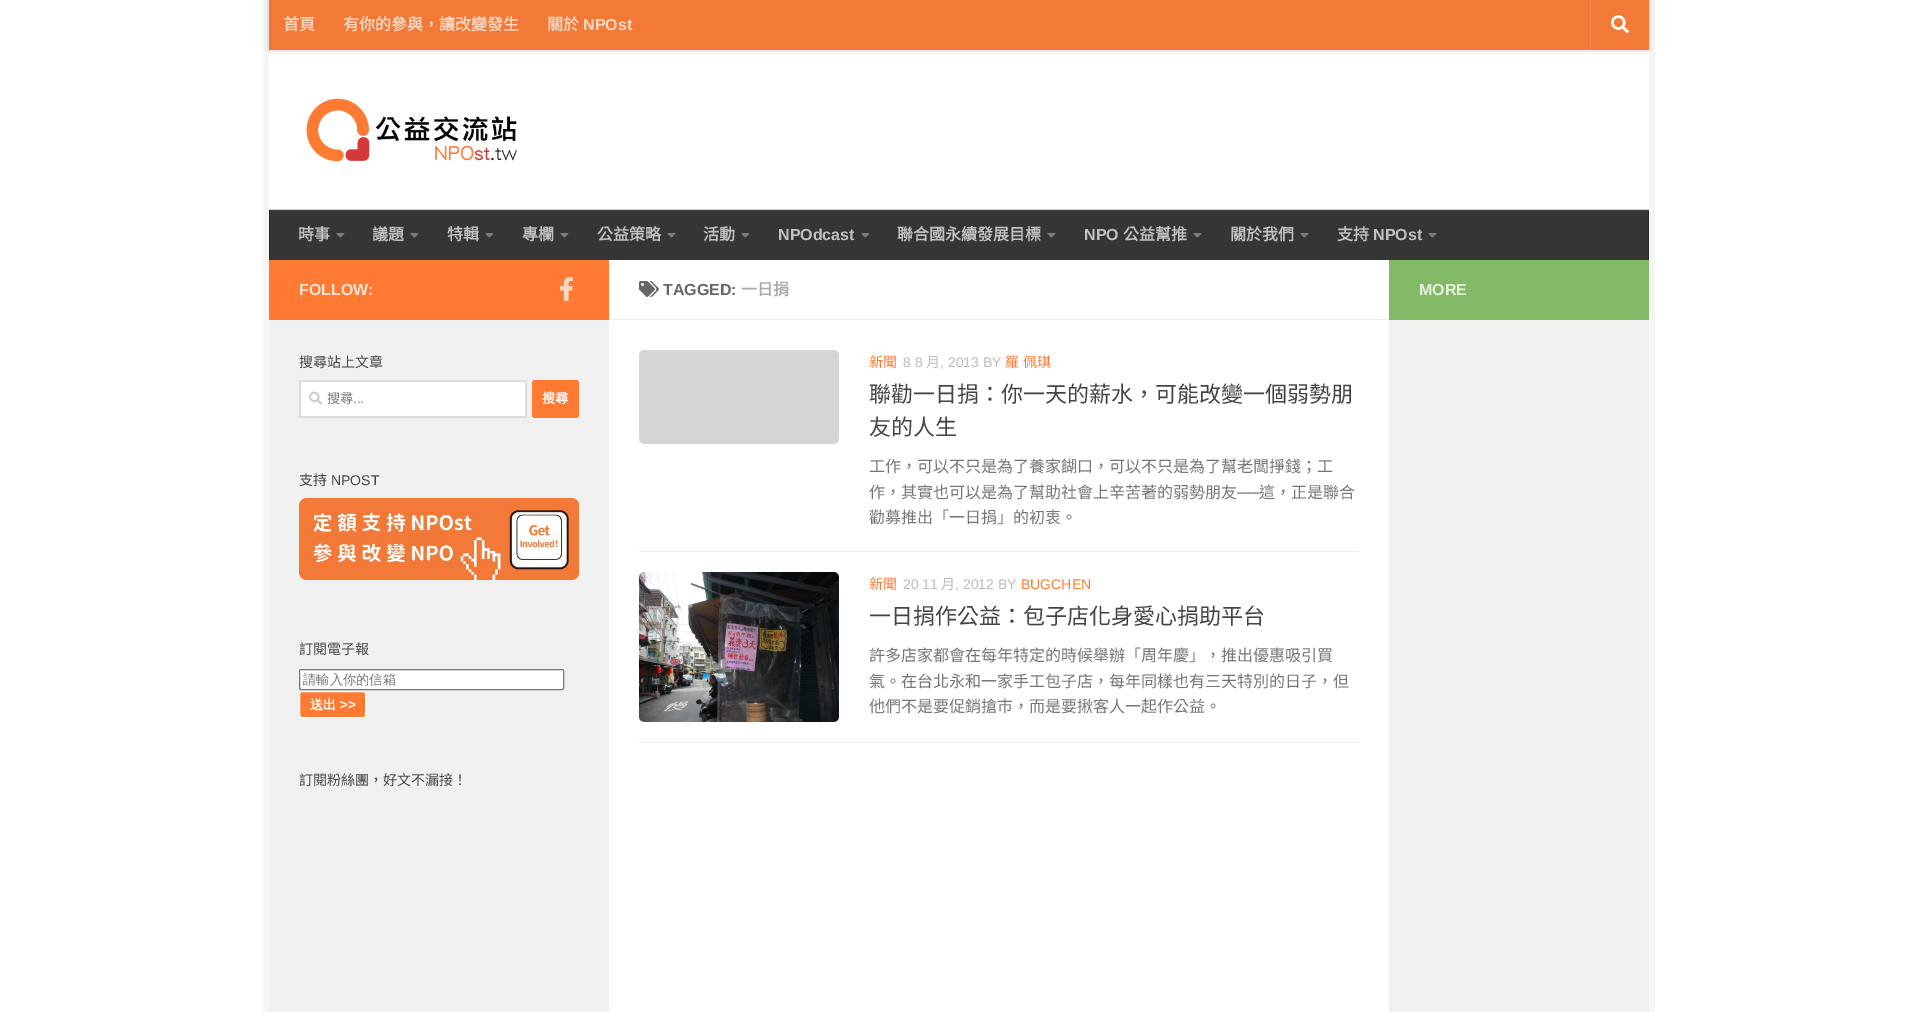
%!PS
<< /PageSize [1917 1012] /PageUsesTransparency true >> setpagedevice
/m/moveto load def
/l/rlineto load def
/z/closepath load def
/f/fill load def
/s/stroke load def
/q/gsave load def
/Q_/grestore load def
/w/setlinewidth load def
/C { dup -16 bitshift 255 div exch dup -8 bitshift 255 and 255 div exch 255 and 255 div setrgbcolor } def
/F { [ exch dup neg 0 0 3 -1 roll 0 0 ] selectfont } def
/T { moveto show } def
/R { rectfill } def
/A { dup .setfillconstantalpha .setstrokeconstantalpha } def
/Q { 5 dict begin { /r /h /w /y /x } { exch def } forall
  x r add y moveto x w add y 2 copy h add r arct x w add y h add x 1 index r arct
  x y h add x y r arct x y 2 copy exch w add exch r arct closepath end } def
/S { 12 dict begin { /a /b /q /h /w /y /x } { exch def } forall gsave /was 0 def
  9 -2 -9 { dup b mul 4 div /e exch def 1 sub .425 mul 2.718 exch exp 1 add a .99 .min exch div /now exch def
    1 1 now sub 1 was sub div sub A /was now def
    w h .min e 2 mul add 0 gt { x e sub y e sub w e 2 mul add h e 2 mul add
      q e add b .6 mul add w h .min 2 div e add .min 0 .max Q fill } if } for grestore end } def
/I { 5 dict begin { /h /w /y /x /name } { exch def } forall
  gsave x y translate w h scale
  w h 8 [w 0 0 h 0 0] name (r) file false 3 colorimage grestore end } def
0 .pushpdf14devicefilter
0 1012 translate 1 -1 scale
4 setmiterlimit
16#FFFFFF C
0 0 1917 1012 R
16#F5F5F5 C
263 0 6 1012 R
1649 0 6 1012 R
16#000000 C
269 0 1380 50 0 2.5 .2 S
16#F37936 C
269 0 1380 50 R
/NotoSansCJKTC-Bold 16 F
16#FBD7C3 C
(首頁) 283 30 T
(有你的參與，讓改變發生) 343 30 T
(關於) 547 30 T
/LiberationSans-Bold 16 F
(NPOst) 583 30 T
16#F4864A C
1590 0 1 50 R
(1.rgb) 1611 15 18 19 I
(2.rgb) 306 98 211 64 I
16#CCCCCC C
269 209 1380 1 R
16#353535 C
270 211 1378 49 R
16#3F3F3F C
269 210 1380 1 R
16#2A2A2A C
1648 210 1 50 R
16#353535 C
1648 210 1 1 R
16#2A2A2A C
269 210 1 50 R
16#353535 C
269 210 1 1 R
/NotoSansCJKTC-Bold 16 F
16#C2C2C2 C
(時事) 298 240 T
(3.rgb) 336 233 9 5 I
(議題) 372 240 T
(3.rgb) 410 233 9 5 I
(特輯) 447 240 T
(3.rgb) 485 233 9 5 I
(專欄) 522 240 T
(3.rgb) 560 233 9 5 I
(公益策略) 597 240 T
(3.rgb) 667 233 9 5 I
(活動) 703 240 T
(3.rgb) 741 233 9 5 I
/LiberationSans-Bold 16 F
(NPOdcast) 778 240 T
(3.rgb) 861 233 9 5 I
/NotoSansCJKTC-Bold 16 F
(聯合國永續發展目標) 897 240 T
(3.rgb) 1047 233 9 5 I
/LiberationSans-Bold 16 F
(NPO) 1084 240 T
/NotoSansCJKTC-Bold 16 F
(公益幫推) 1123 240 T
(3.rgb) 1193 233 9 5 I
(關於我們) 1230 240 T
(3.rgb) 1300 233 9 5 I
(支持) 1337 240 T
/LiberationSans-Bold 16 F
(NPOst) 1373 240 T
(3.rgb) 1428 233 9 5 I
16#FF7A32 C
269 260 340 60 R
16#FFE4D6 C
(FOLLOW:) 299 295 T
(4.rgb) 560 277 13 24 I
16#F0F0F0 C
269 320 340 692 R
/NotoSansCJKTC-Regular 14 F
16#444444 C
(搜尋站上文章) 299 367 T
16#FFFFFF C
300 381 m 226 0 l 0 36 l -226 0 l z q f Q_
16#DDDDDD C
2 w
s
(5.rgb) 309 391 13 14 I
/NotoSansCJKTC-Regular 13.25 F
16#767676 C
(搜尋) 327 403 T
/LiberationSans-Regular 13.25 F
(...) 353 403 T
16#FF7A32 C
532 380 47 38 3 Q f
/NotoSansCJKTC-Bold 13.25 F
16#FFFFFF C
(搜尋) 542 403 T
/NotoSansCJKTC-Regular 14 F
16#444444 C
(支持) 299 485 T
/LiberationSans-Regular 14 F
(NPOST) 331 485 T
(6.rgb) 299 498 280 82 I
/NotoSansCJKTC-Regular 14 F
(訂閱電子報) 299 654 T
16#FFFFFF C
299.5 669.5 264 20 1.5 Q q f Q_
16#767676 C
1 w
s
q
303 671 257 17 rectclip
/WenQuanYiZenHei-Medium 13.25 F
(請輸入你的信箱) 303 684 T
Q_
16#FF7A32 C
299.5 691.5 66 26 2.5 Q q f Q_
16#FFFFFF C
s
/WenQuanYiZenHei-Bold 13.25 F
(送出) 310 709 T
/LiberationSans-Bold 13.25 F
(>>) 340 709 T
/NotoSansCJKTC-Regular 14 F
16#444444 C
(訂閱粉絲團，好文不漏接！) 299 785 T
16#EEEEEE C
609 319 780 1 R
(7.rgb) 639 281 20 16 I
/LiberationSans-Bold 16 F
16#666666 C
(TAGGED:) 663 295 T
/NotoSansCJKTC-Bold 16 F
16#AAAAAA C
(一日捐) 741 295 T
16#EEEEEE C
639 551 720 1 R
(8.rgb) 639 350 200 94 I
/NotoSansCJKTC-Regular 14 F
16#FF7A32 C
(新聞) 869 367 T
/LiberationSans-Regular 14 F
16#BBBBBB C
(8 8) 903 367 T
/NotoSansCJKTC-Regular 14 F
(月) 926 367 T
/LiberationSans-Regular 14 F
(, 2013 BY) 940 367 T
/NotoSansCJKTC-Regular 14 F
16#FF7A32 C
1005 367 m 1 0 32 (羅 佩琪) widthshow
/NotoSansCJKTC-Regular 22 F
16#444444 C
(聯勸一日捐：你一天的薪水，可能改變一個弱勢朋) 869 402 T
(友的人生) 869 435 T
/NotoSansCJKTC-Regular 16 F
16#767676 C
(工作，可以不只是為了養家餬口，可以不只是為了幫老闆掙錢；工) 869 472 T
(作，其實也可以是為了幫助社會上辛苦著的弱勢朋友) 869 498 T
/LiberationSans-Regular 16 F
(──) 1237 498 T
/NotoSansCJKTC-Regular 16 F
(這，正是聯合) 1259 498 T
(勸募推出「一日捐」的初衷。) 869 523 T
16#EEEEEE C
639 742 720 1 R
(9.rgb) 639 572 200 150 I
/NotoSansCJKTC-Regular 14 F
16#FF7A32 C
(新聞) 869 589 T
/LiberationSans-Regular 14 F
16#BBBBBB C
(20 11) 903 589 T
/NotoSansCJKTC-Regular 14 F
(月) 941 589 T
/LiberationSans-Regular 14 F
(, 2012 BY) 955 589 T
16#FF7A32 C
(BUGCHEN) 1021 589 T
/NotoSansCJKTC-Regular 22 F
16#444444 C
(一日捐作公益：包子店化身愛心捐助平台) 869 624 T
/NotoSansCJKTC-Regular 16 F
16#767676 C
(許多店家都會在每年特定的時候舉辦「周年慶」，推出優惠吸引買) 869 661 T
(氣。在台北永和一家手工包子店，每年同樣也有三天特別的日子，但) 869 687 T
(他們不是要促銷搶巿，而是要揪客人一起作公益。) 869 712 T
16#82B965 C
1389 260 260 60 R
/LiberationSans-Bold 16 F
16#E6F1E0 C
(MORE) 1419 295 T
16#F0F0F0 C
1389 320 260 692 R
.poppdf14devicefilter showpage
